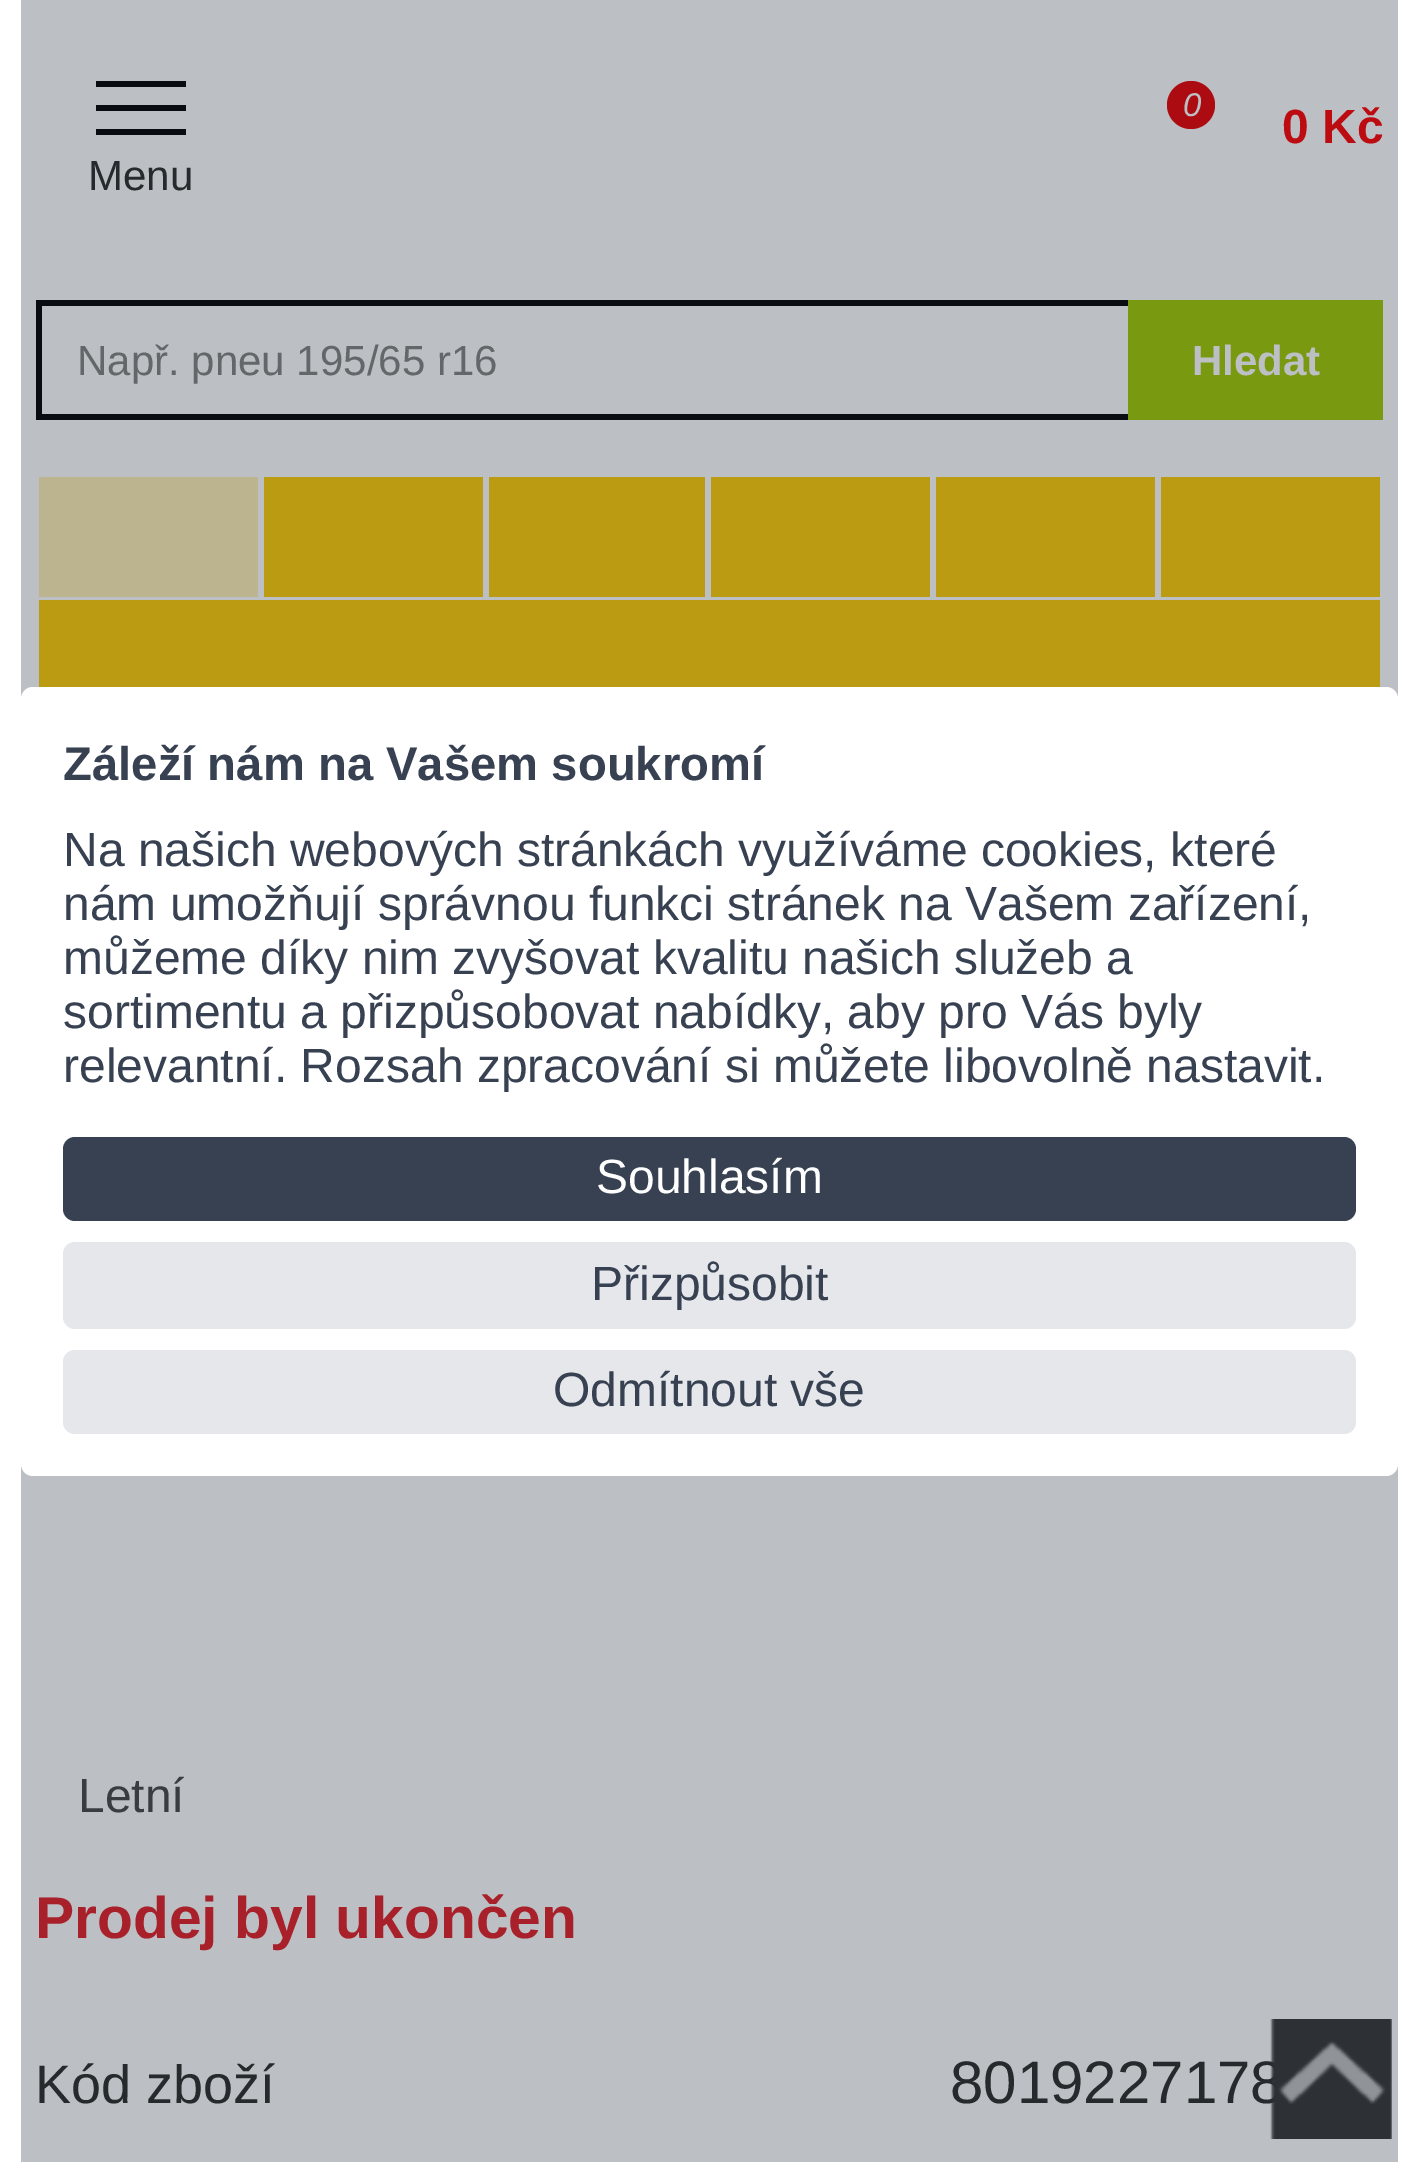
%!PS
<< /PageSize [1418 2162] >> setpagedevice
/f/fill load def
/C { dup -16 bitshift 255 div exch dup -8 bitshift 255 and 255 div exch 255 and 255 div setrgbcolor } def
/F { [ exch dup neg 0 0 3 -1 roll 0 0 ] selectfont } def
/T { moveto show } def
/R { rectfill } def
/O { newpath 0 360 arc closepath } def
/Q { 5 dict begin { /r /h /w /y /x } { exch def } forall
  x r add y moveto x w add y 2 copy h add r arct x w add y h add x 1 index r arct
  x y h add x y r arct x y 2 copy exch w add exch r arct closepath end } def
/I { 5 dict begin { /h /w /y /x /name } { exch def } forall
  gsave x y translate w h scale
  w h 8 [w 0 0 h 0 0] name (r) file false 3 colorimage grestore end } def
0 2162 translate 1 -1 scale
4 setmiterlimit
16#FFFFFF C
0 0 1418 2162 R
16#BCBFC3 C
21 0 1377 2162 R
16#AC0C11 C
1191 105 24 O f
/LiberationSans-Italic 33 F
16#BCBFC3 C
(0) 1183 116 T
/LiberationSans-Bold 48 F
16#BC0C11 C
(0 Kč) 1282 143 T
16#090C11 C
96 81 90 6 R
96 105 90 6 R
96 129 90 6 R
/LiberationSans-Regular 42 F
16#272A2D C
(Menu) 88 190 T
16#090C11 C
36 300 1092 6 R
36 414 1092 6 R
36 300 6 120 R
16#646769 C
(Např. pneu 195/65 r16) 77 375 T
16#799911 C
1128 300 255 120 R
/LiberationSans-Bold 42 F
16#BCBFC3 C
(Hledat) 1192 375 T
16#BB9B11 C
39 477 1341 210 R
16#BCB48E C
39 477 219 120 R
16#BCBFC3 C
258 477 6 120 R
483 477 6 120 R
705 477 6 120 R
930 477 6 120 R
1155 477 6 120 R
36 597 1347 3 R
16#FFFFFF C
21 687 1377 789 12 Q f
/LiberationSans-Bold 47.25 F
16#374151 C
(Záleží nám na Vašem soukromí) 63 780 T
/LiberationSans-Regular 48 F
(Na našich webových stránkách využíváme cookies, které) 63 866 T
(nám umožňují správnou funkci stránek na Vašem zařízení,) 63 920 T
(můžeme díky nim zvyšovat kvalitu našich služeb a) 63 974 T
(sortimentu a přizpůsobovat nabídky, aby pro Vás byly) 63 1028 T
(relevantní. Rozsah zpracování si můžete libovolně nastavit.) 63 1082 T
63 1137 1293 84 12 Q f
16#FFFFFF C
(Souhlasím) 596 1193 T
16#E5E7EB C
63 1242 1293 87 12 Q f
16#374151 C
(Přizpůsobit) 591 1300 T
16#E5E7EB C
63 1350 1293 84 12 Q f
16#374151 C
(Odmítnout vše) 553 1406 T
16#393C40 C
(Letní) 78 1812 T
/LiberationSans-Bold 58.75 F
16#A8212A C
(Prodej byl ukončen) 35 1938 T
/LiberationSans-Regular 54 F
16#272A2D C
(Kód zboží) 35 2103 T
/LiberationSans-Regular 60 F
(8019227178) 950 2103 T
(1.rgb) 1270 2019 122 120 I
showpage
